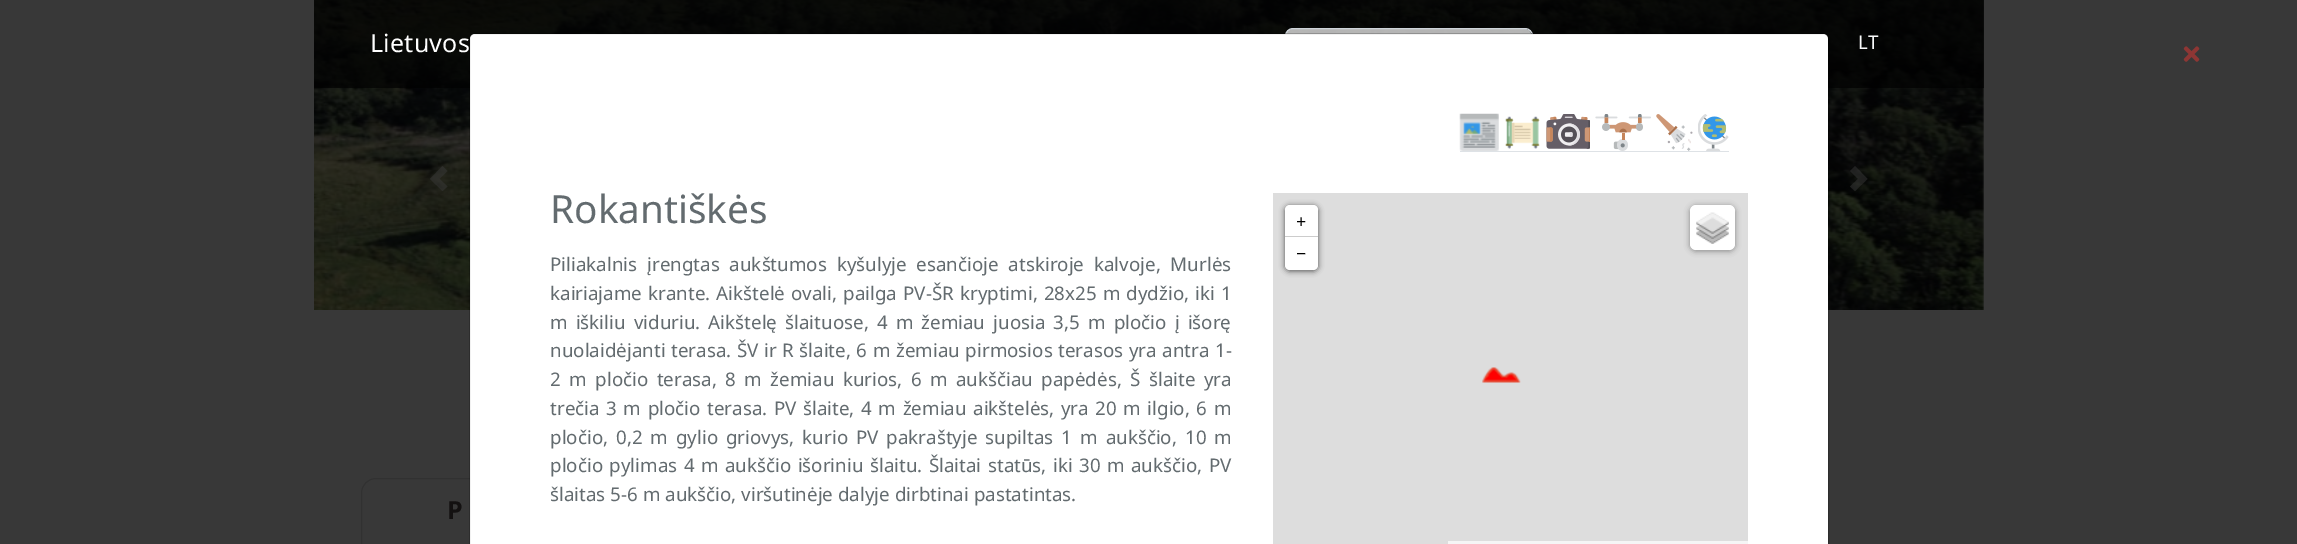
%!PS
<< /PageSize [2297 544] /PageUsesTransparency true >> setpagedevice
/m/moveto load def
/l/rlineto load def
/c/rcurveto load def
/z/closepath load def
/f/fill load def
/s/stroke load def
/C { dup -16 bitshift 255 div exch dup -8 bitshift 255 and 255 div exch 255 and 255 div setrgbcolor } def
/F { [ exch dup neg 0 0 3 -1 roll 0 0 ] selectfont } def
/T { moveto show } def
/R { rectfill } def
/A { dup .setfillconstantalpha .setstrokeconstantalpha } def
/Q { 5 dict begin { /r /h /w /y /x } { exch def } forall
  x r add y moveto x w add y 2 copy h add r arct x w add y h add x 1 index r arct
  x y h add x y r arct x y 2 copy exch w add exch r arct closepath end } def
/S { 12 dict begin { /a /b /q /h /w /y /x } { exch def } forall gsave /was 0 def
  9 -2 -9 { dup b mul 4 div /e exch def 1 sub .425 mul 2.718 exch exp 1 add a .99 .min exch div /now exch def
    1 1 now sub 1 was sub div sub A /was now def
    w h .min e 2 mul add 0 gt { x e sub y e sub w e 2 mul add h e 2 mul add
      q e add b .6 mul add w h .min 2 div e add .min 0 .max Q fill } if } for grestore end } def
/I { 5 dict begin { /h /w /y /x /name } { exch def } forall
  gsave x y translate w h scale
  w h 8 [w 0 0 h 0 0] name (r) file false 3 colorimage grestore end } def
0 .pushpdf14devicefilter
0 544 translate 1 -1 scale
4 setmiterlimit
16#383838 C
0 0 2297 544 R
(1.rgb) 314 0 1670 310 I
0.68 A
16#000000 C
314 0 1670 88 R
/NotoSans-Regular 25 F
1 A
16#FFFFFF C
370 52 m .25 0 (Lietuvos) ashow
0.7 A
1286 29 245 35 6 Q f
1 A
16#CED4DA C
1285.5 28.5 247 36 7.5 Q s
/NotoSans-Regular 18.75 F
16#F8F9FA C
(LT) 1858 49 T
0.5 A
16#383838 C
442.5 166 m -12.5 13 l 12.5 12 l 5 -4.5 l -8 -7.5 l 8 -8 l z f
1855 166 m -5 5 l 8 8 l -8 7.5 l 5 4.5 l 12.5 -12 l z f
1 A
16#313131 C
361.5 478.5 399 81 14.5 Q s
16#FFFFFF C
475 34 m 1348 0 l 3 0 5 2 5 5 c 0 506 l -1358 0 l 0 -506 l 0 -3 2 -5 5 -5 c z f
0.2 A
16#000000 C
469.5 33.5 1359 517 5.5 Q s
1 A
(2.rgb) 2183 46 17 16 I
16#DEE2E6 C
1460 151 269 1 R
(3.rgb) 1459 113 40 38 I
(4.rgb) 1505 116 35 33 I
(5.rgb) 1546 114 44 35 I
(6.rgb) 1595 114 56 37 I
(7.rgb) 1656 114 37 37 I
(8.rgb) 1698 114 31 37 I
/NotoSans-Regular 38.75 F
16#636B6F C
(Rokantiškės) 550 223 T
/NotoSans-Regular 18.75 F
550 271 m 5 0 32 (Piliakalnis įrengtas aukštumos kyšulyje esančioje atskiroje kalvoje, Murlės) widthshow
550 300 m 1.25 0 32 (kairiajame krante. Aikštelė ovali, pailga PV-ŠR kryptimi, 28x25 m dydžio, iki 1) widthshow
550 329 m 3.25 0 32 (m iškiliu viduriu. Aikštelę šlaituose, 4 m žemiau juosia 3,5 m pločio į išorę) widthshow
550 357 m .75 0 32 (nuolaidėjanti terasa. ŠV ir R šlaite, 6 m žemiau pirmosios terasos yra antra 1-) widthshow
550 386 m 3.6 0 32 (2 m pločio terasa, 8 m žemiau kurios, 6 m aukščiau papėdės, Š šlaite yra) widthshow
550 415 m 1.75 0 32 (trečia 3 m pločio terasa. PV šlaite, 4 m žemiau aikštelės, yra 20 m ilgio, 6 m) widthshow
550 444 m 3.1 0 32 (pločio, 0,2 m gylio griovys, kurio PV pakraštyje supiltas 1 m aukščio, 10 m) widthshow
550 472 m 1.6 0 32 (pločio pylimas 4 m aukščio išoriniu šlaitu. Šlaitai statūs, iki 30 m aukščio, PV) widthshow
(šlaitas 5-6 m aukščio, viršutinėje dalyje dirbtinai pastatintas.) 550 501 T
16#DDDDDD C
1273 193 475 351 R
16#000000 C
1285 206 33 65 5 3 .65 S
16#FFFFFF C
1290 205 m 23 0 l 3 0 5 2 5 5 c 0 28 l -33 0 l 0 -28 l 0 -3 2 -5 5 -5 c z f
16#CCCCCC C
1285 236 33 1 R
/NotoSans-Regular 18 F
16#000000 C
(+) 1296 228 T
16#FFFFFF C
1285 238 m 33 0 l 0 27 l 0 3 -2 5 -5 5 c -23 0 l -3 0 -5 -2 -5 -5 c z f
16#000000 C
(−) 1296 260 T
1690 206 45 45 6 3 .4 S
16#FFFFFF C
1690 205 45 45 6 Q f
(9.rgb) 1696 212 33 32 I
16#F5F5F5 C
1448 541 300 3 R
(10.rgb) 1482 367 39 16 I
/NotoSans-Bold 25 F
16#131111 C
(P) 447 519 T
.poppdf14devicefilter showpage
